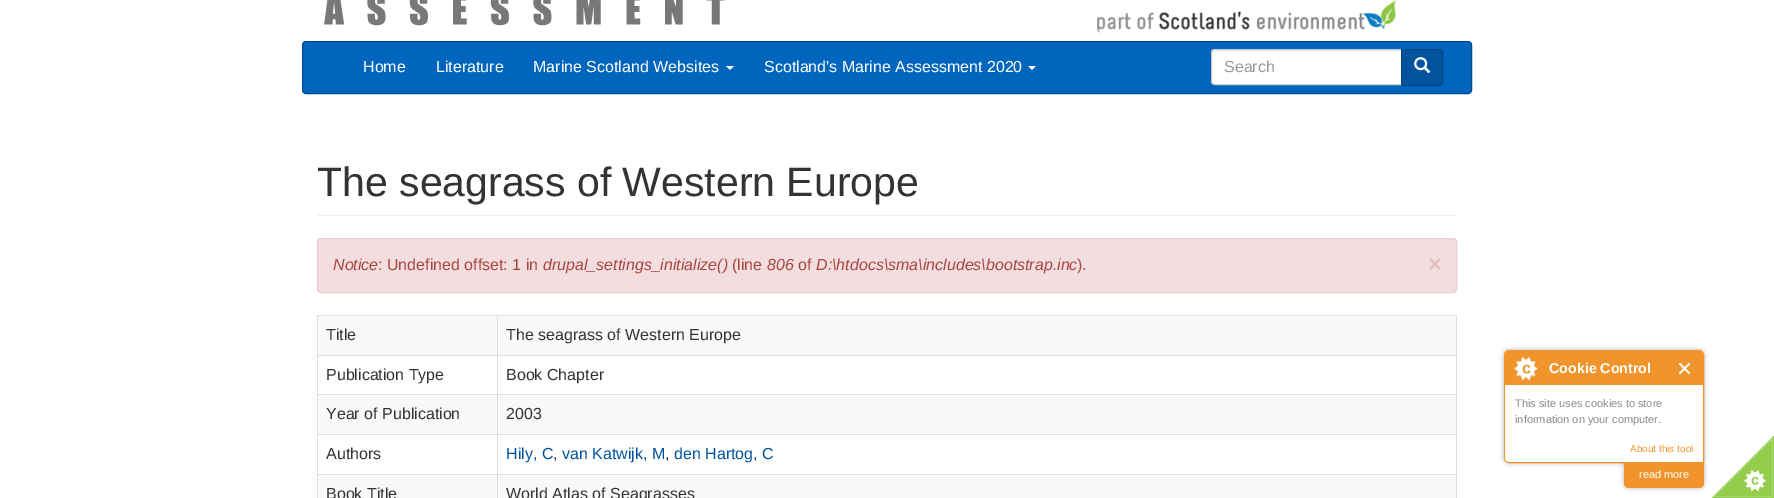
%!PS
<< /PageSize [1774 498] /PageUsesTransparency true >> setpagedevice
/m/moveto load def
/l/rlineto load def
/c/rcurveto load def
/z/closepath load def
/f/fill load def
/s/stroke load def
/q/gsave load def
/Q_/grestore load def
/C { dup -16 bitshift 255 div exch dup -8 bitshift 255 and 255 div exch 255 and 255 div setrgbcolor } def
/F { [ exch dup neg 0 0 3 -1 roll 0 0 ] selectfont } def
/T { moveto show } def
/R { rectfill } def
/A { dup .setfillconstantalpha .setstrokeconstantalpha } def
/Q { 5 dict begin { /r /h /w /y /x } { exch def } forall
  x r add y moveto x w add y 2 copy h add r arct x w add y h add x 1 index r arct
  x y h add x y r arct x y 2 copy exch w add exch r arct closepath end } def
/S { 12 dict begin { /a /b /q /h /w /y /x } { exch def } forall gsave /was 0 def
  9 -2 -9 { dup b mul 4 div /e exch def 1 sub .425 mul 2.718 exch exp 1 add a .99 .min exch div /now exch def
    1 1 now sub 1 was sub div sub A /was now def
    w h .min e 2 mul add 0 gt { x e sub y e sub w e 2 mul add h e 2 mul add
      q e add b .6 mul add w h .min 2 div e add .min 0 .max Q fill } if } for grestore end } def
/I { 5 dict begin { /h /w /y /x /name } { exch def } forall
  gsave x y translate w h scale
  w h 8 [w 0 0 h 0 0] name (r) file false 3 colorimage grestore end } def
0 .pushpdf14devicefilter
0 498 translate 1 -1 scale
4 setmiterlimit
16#FFFFFF C
0 0 1774 498 R
(1.rgb) 324 0 401 26 I
(2.rgb) 1097 0 300 33 I
16#0065BD C
302.5 41.5 1169 52 3.5 Q q f Q_
16#004A8A C
s
/LiberationSans-Regular 16 F
16#FFFFFF C
(Home) 363 72 T
(Literature) 436 72 T
(Marine Scotland Websites) 533 72 T
726 66 m 8 0 l -4 4 l z f
(Scotland's Marine Assessment 2020) 764 72 T
1028 66 m 8 0 l -4 4 l z f
1215 49 m 187 0 l 0 36 l -187 0 l -2 0 -4 -2 -4 -4 c 0 -28 l 0 -2 2 -4 4 -4 c z f
16#ECECEC C
1215 51 m 186 0 l 0 -1 l -186 0 l -2 0 -3 2 -3 4 c 0 -2 1 -3 3 -3 c z f
16#CCCCCC C
1215 49.5 m 186.5 0 l 0 35 l -186.5 0 l -2 0 -3.5 -1.5 -3.5 -3.5 c 0 -28 l 0 -2 1.5 -3.5 3.5 -3.5 c z s
16#999999 C
(Search) 1224 72 T
16#00539C C
1401.5 49.5 m 37.5 0 l 2 0 3.5 1.5 3.5 3.5 c 0 29 l 0 2 -1.5 3.5 -3.5 3.5 c -37.5 0 l z q f Q_
16#004682 C
s
(3.rgb) 1414 57 17 17 I
16#EEEEEE C
317 215 1140 1 R
/LiberationSans-Regular 41 F
16#333333 C
(The seagrass of Western Europe) 317 196 T
16#F2DEDE C
317.5 238.5 1139 54 3.5 Q q f Q_
16#EBCCD1 C
s
/LiberationSans-Italic 16 F
16#A94442 C
(Notice) 333 270 T
/LiberationSans-Regular 16 F
(: Undefined offset: 1 in) 378 270 T
/LiberationSans-Italic 16 F
(drupal_settings_initialize\(\)) 543 270 T
/LiberationSans-Regular 16 F
(\(line) 732 270 T
/LiberationSans-Italic 16 F
(806) 767 270 T
/LiberationSans-Regular 16 F
(of) 798 270 T
/LiberationSans-Italic 16 F
(D:\\htdocs\\sma\\includes\\bootstrap.inc) 816 270 T
/LiberationSans-Regular 16 F
(\).) 1077 270 T
/LiberationSans-Bold 24 F
16#E3BFBF C
(×) 1428 272 T
16#DDDDDD C
317 315 1140 1 R
1456 315 1 183 R
317 315 1 183 R
16#F9F9F9 C
318 316 1138 39 R
/LiberationSans-Regular 16 F
16#333333 C
(Title) 326 340 T
16#DDDDDD C
497 355 960 1 R
497 394 960 1 R
16#F9F9F9 C
318 395 1138 39 R
16#DDDDDD C
497 434 960 1 R
497 474 960 1 R
16#F9F9F9 C
318 475 1138 23 R
16#DDDDDD C
497 474 1 24 R
317 474 181 1 R
497 434 1 41 R
317 434 181 1 R
497 394 1 41 R
317 394 181 1 R
497 355 1 40 R
317 355 181 1 R
497 315 1 41 R
16#333333 C
(The seagrass of Western Europe) 506 340 T
(Publication Type) 326 380 T
(Book Chapter) 506 380 T
(Year of Publication) 326 419 T
(2003) 506 419 T
(Authors) 326 459 T
16#00539C C
(Hily, C) 506 459 T
16#333333 C
(,) 553 459 T
16#00539C C
(van Katwijk, M) 562 459 T
16#333333 C
(,) 665 459 T
16#00539C C
(den Hartog, C) 674 459 T
16#333333 C
(Book Title) 326 499 T
(World Atlas of Seagrasses) 506 499 T
(6.rgb) 1712 436 62 62 I
16#000000 C
1504 350 200 113 5 2.5 .3 S
16#FFFFFF C
1509 350.5 m 190 0 l 2.5 0 4.5 2 4.5 4.5 c 0 107.5 l -194.5 0 l -2.5 0 -4.5 -2 -4.5 -4.5 c 0 -103 l 0 -2.5 2 -4.5 4.5 -4.5 c z q f Q_
16#F0942B C
s
16#000000 C
1624 461 80 27 5 2.5 .3 S
16#F0942B C
1624 461 m 80 0 l 0 22 l 0 3 -2 5 -5 5 c -70 0 l -3 0 -5 -2 -5 -5 c z f
16#FFFFFF C
1510 351 m 188 0 l 3 0 5 2 5 5 c 0 106 l -193 0 l -3 0 -5 -2 -5 -5 c 0 -101 l 0 -3 2 -5 5 -5 c z f
16#F0942B C
1508 351 m 192 0 l 1.5 0 3 1.5 3 3 c 0 31 l -198 0 l 0 -31 l 0 -1.5 1.5 -3 3 -3 c z f
(4.rgb) 1514 357 24 24 I
/LiberationSans-Bold 14.25 F
16#FFFFFF C
(Cookie Control) 1549 373 T
(5.rgb) 1679 362 12 13 I
/LiberationSans-Regular 11 F
16#888888 C
(This site uses cookies to store) 1515 407 T
(information on your computer.) 1515 423 T
/LiberationSans-Regular 10 F
16#F0942B C
(About this tool) 1630 452 T
/LiberationSans-Regular 11 F
16#FFFFFF C
(read more) 1639 478 T
.poppdf14devicefilter showpage
